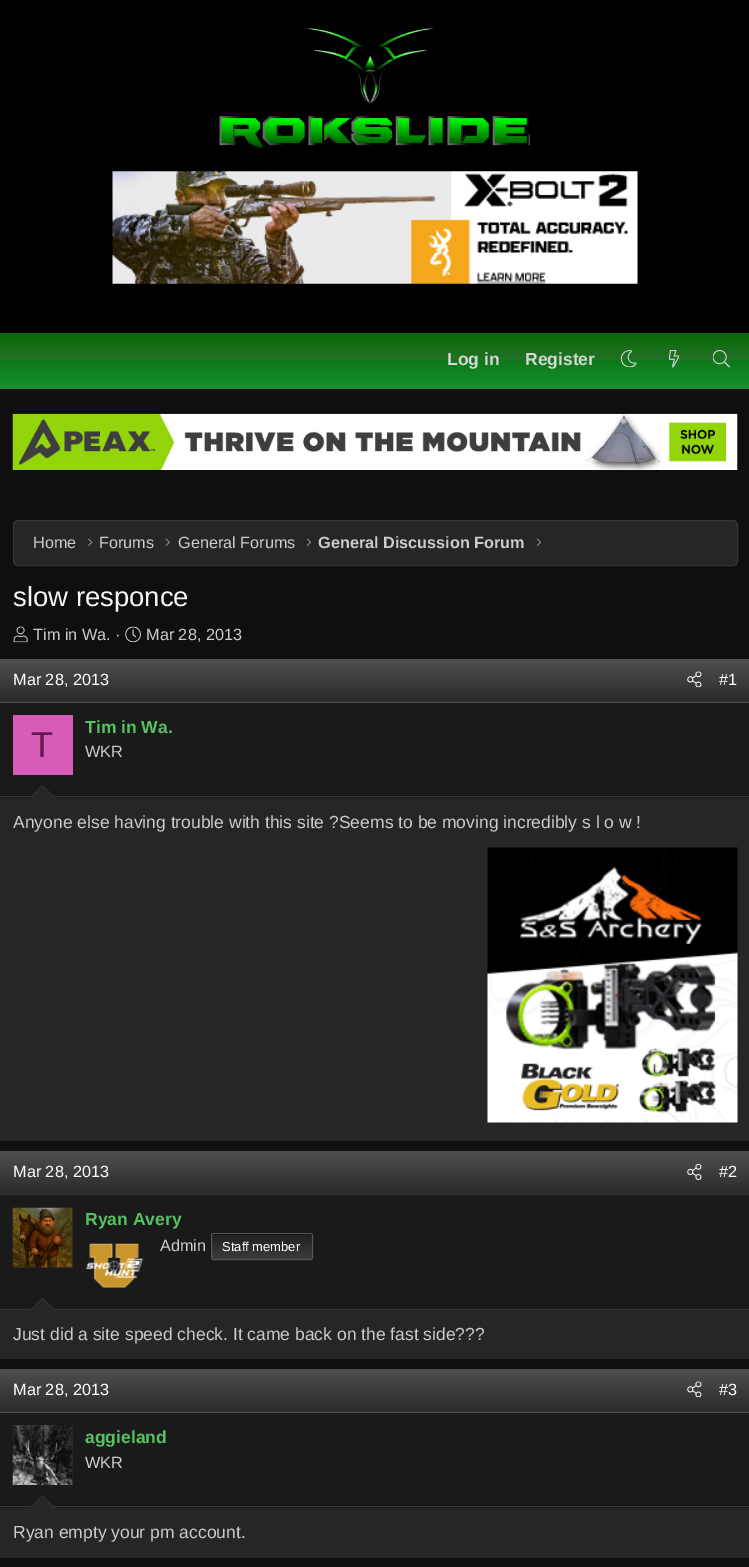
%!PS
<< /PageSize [749 1567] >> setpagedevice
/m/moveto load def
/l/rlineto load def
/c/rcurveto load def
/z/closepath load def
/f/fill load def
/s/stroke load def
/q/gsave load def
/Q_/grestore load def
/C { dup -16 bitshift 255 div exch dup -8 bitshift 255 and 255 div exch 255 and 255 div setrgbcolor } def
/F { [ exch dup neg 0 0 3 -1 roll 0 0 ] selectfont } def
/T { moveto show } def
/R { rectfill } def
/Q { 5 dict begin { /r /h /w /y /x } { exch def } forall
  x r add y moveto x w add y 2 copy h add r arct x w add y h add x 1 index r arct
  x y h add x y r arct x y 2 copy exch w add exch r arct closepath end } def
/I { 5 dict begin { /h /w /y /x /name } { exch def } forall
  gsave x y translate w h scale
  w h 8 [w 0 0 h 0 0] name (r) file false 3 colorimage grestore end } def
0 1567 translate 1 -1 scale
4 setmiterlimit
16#0F0F0F C
0 0 749 1567 R
16#000000 C
0 0 749 333 R
(1.rgb) 219 28 311 120 I
(2.rgb) 112 171 526 113 I
q 0 333 m 749 0 l 0 56 l -749 0 l z clip newpath
<< /ShadingType 2 /ColorSpace /DeviceRGB /Coords [375 332 375 389] /Extend [true true] /Function << /FunctionType 3 /Domain [0 1] /Functions [<< /FunctionType 2 /Domain [0 1] /C0 [.035 .416 .024] /C1 [.035 .416 .024] /N 1 >> << /FunctionType 2 /Domain [0 1] /C0 [.035 .416 .024] /C1 [.133 .447 .153] /N 1 >> << /FunctionType 2 /Domain [0 1] /C0 [.133 .447 .153] /C1 [.051 .471 .098] /N 1 >> << /FunctionType 2 /Domain [0 1] /C0 [.051 .471 .098] /C1 [.094 .569 .18] /N 1 >>] /Bounds [.01 .49 .5] /Encode [0 1 0 1 0 1 0 1] >> >> shfill Q_
/LiberationSans-Bold 17.5 F
16#D6D6D6 C
(Log in) 447 365 T
(Register) 525 365 T
(3.rgb) 620 350 17 18 I
(4.rgb) 669 350 10 18 I
(5.rgb) 713 350 17 18 I
(6.rgb) 12 413 726 57 I
16#262626 C
13.5 520.5 724 45 4.5 Q q f Q_
16#363636 C
s
/LiberationSans-Regular 16.25 F
16#CCCCCC C
(Home) 33 548 T
(7.rgb) 88 538 5 8 I
(Forums) 99 548 T
(8.rgb) 165 538 5 8 I
(General Forums) 178 548 T
(9.rgb) 306 538 5 8 I
/LiberationSans-Bold 16.25 F
(General Discussion Forum) 318 548 T
(9.rgb) 536 538 5 8 I
/LiberationSans-Regular 27.5 F
16#F7F7F7 C
(slow responce) 13 606 T
(10.rgb) 13 626 15 17 I
/LiberationSans-Regular 16.25 F
16#CCCCCC C
(Tim in Wa. ·) 33 640 T
(11.rgb) 125 626 16 17 I
(Mar 28, 2013) 146 640 T
16#262626 C
0 798 749 343 R
q 0 659 m 749 0 l 0 42 l -749 0 l z clip newpath
<< /ShadingType 2 /ColorSpace /DeviceRGB /Coords [375 659 375 701] /Extend [true true] /Function << /FunctionType 2 /Domain [0 1] /C0 [.31 .31 .31] /C1 [.169 .169 .169] /N 1 >> >> shfill Q_
q 0 702 m 749 0 l 0 1 l -749 0 l z clip newpath
<< /ShadingType 2 /ColorSpace /DeviceRGB /Coords [375 701 375 744] /Extend [true true] /Function << /FunctionType 2 /Domain [0 1] /C0 [.31 .31 .31] /C1 [.169 .169 .169] /N 1 >> >> shfill Q_
16#363636 C
0 701 749 1 R
16#FFFFFF C
(Mar 28, 2013) 13 685 T
(12.rgb) 687 671 15 17 I
(#1) 719 685 T
16#1A1A1A C
0 703 749 95 R
16#363636 C
0 796 749 1 R
16#D65CB8 C
13 715 60 60 R
/LiberationSans-Regular 36 F
16#661A53 C
(T) 31 757 T
/LiberationSans-Bold 17.5 F
16#55C364 C
(Tim in Wa.) 85 733 T
/LiberationSans-Regular 16.25 F
16#CCCCCC C
(WKR) 85 757 T
16#363636 C
55 797.5 m -25 0 l 12.5 -12.5 l z f
16#262626 C
54 797.5 m -23 0 l 11.5 -11.5 l z f
/LiberationSans-Regular 17.5 F
16#CCCCCC C
(Anyone else having trouble with this site ?Seems to be moving incredibly s l o w !) 13 828 T
(13.rgb) 487 847 251 276 I
16#262626 C
0 1310 749 49 R
q 0 1151 m 749 0 l 0 43 l -749 0 l z clip newpath
<< /ShadingType 2 /ColorSpace /DeviceRGB /Coords [375 1151 375 1194] /Extend [true true] /Function << /FunctionType 2 /Domain [0 1] /C0 [.31 .31 .31] /C1 [.169 .169 .169] /N 1 >> >> shfill Q_
16#363636 C
0 1194 749 1 R
/LiberationSans-Regular 16.25 F
16#FFFFFF C
(Mar 28, 2013) 13 1177 T
(14.rgb) 687 1164 15 16 I
(#2) 719 1177 T
16#1A1A1A C
0 1195 749 114 R
16#363636 C
0 1309 749 1 R
16#262626 C
13 1208 60 60 R
(15.rgb) 12 1207 61 61 I
/LiberationSans-Bold 17.5 F
16#55C364 C
(Ryan Avery) 85 1225 T
(16.rgb) 86 1243 57 45 I
/LiberationSans-Regular 16.25 F
16#CCCCCC C
(Admin) 160 1251 T
q
211 1233 102 27 2.5 Q clip newpath
q 211 1234 m 102 0 l 0 25 l -102 0 l z clip newpath
<< /ShadingType 2 /ColorSpace /DeviceRGB /Coords [262 1234 262 1259] /Extend [true true] /Function << /FunctionType 2 /Domain [0 1] /C0 [.129 .129 .129] /C1 [.231 .231 .231] /N 1 >> >> shfill Q_
Q_
16#000000 C
214 1235 m 96 0 l 1 1 l 0 -1 l 0 -1 0 -1 -1 -1 c -96 0 l -1 0 -1 0 -1 1 c z f
16#545454 C
211.5 1233.5 101 26 2 Q s
/LiberationSans-Regular 13 F
16#FFFFFF C
(Staff member) 222 1251 T
16#363636 C
55 1310 m -25 0 l 12.5 -12.5 l z f
16#262626 C
54 1310 m -23 0 l 11.5 -11 l z f
/LiberationSans-Regular 17.5 F
16#CCCCCC C
(Just did a site speed check. It came back on the fast side???) 13 1340 T
16#262626 C
0 1508 749 50 R
q 0 1369 m 749 0 l 0 42 l -749 0 l z clip newpath
<< /ShadingType 2 /ColorSpace /DeviceRGB /Coords [375 1369 375 1411] /Extend [true true] /Function << /FunctionType 2 /Domain [0 1] /C0 [.31 .31 .31] /C1 [.169 .169 .169] /N 1 >> >> shfill Q_
q 0 1412 m 749 0 l 0 1 l -749 0 l z clip newpath
<< /ShadingType 2 /ColorSpace /DeviceRGB /Coords [375 1411 375 1454] /Extend [true true] /Function << /FunctionType 2 /Domain [0 1] /C0 [.31 .31 .31] /C1 [.169 .169 .169] /N 1 >> >> shfill Q_
16#363636 C
0 1411 749 1 R
/LiberationSans-Regular 16.25 F
16#FFFFFF C
(Mar 28, 2013) 13 1395 T
(12.rgb) 687 1381 15 17 I
(#3) 719 1395 T
16#1A1A1A C
0 1413 749 95 R
16#363636 C
0 1506 749 1 R
16#262626 C
72 1425 1 60 R
(17.rgb) 12 1425 61 60 I
/LiberationSans-Bold 17.5 F
16#55C364 C
(aggieland) 85 1443 T
/LiberationSans-Regular 16.25 F
16#CCCCCC C
(WKR) 85 1468 T
16#363636 C
55 1507.5 m -25 0 l 12.5 -12.5 l z f
16#262626 C
54 1507.5 m -23 0 l 11.5 -11.5 l z f
/LiberationSans-Regular 17.5 F
16#CCCCCC C
(Ryan empty your pm account.) 13 1538 T
showpage
